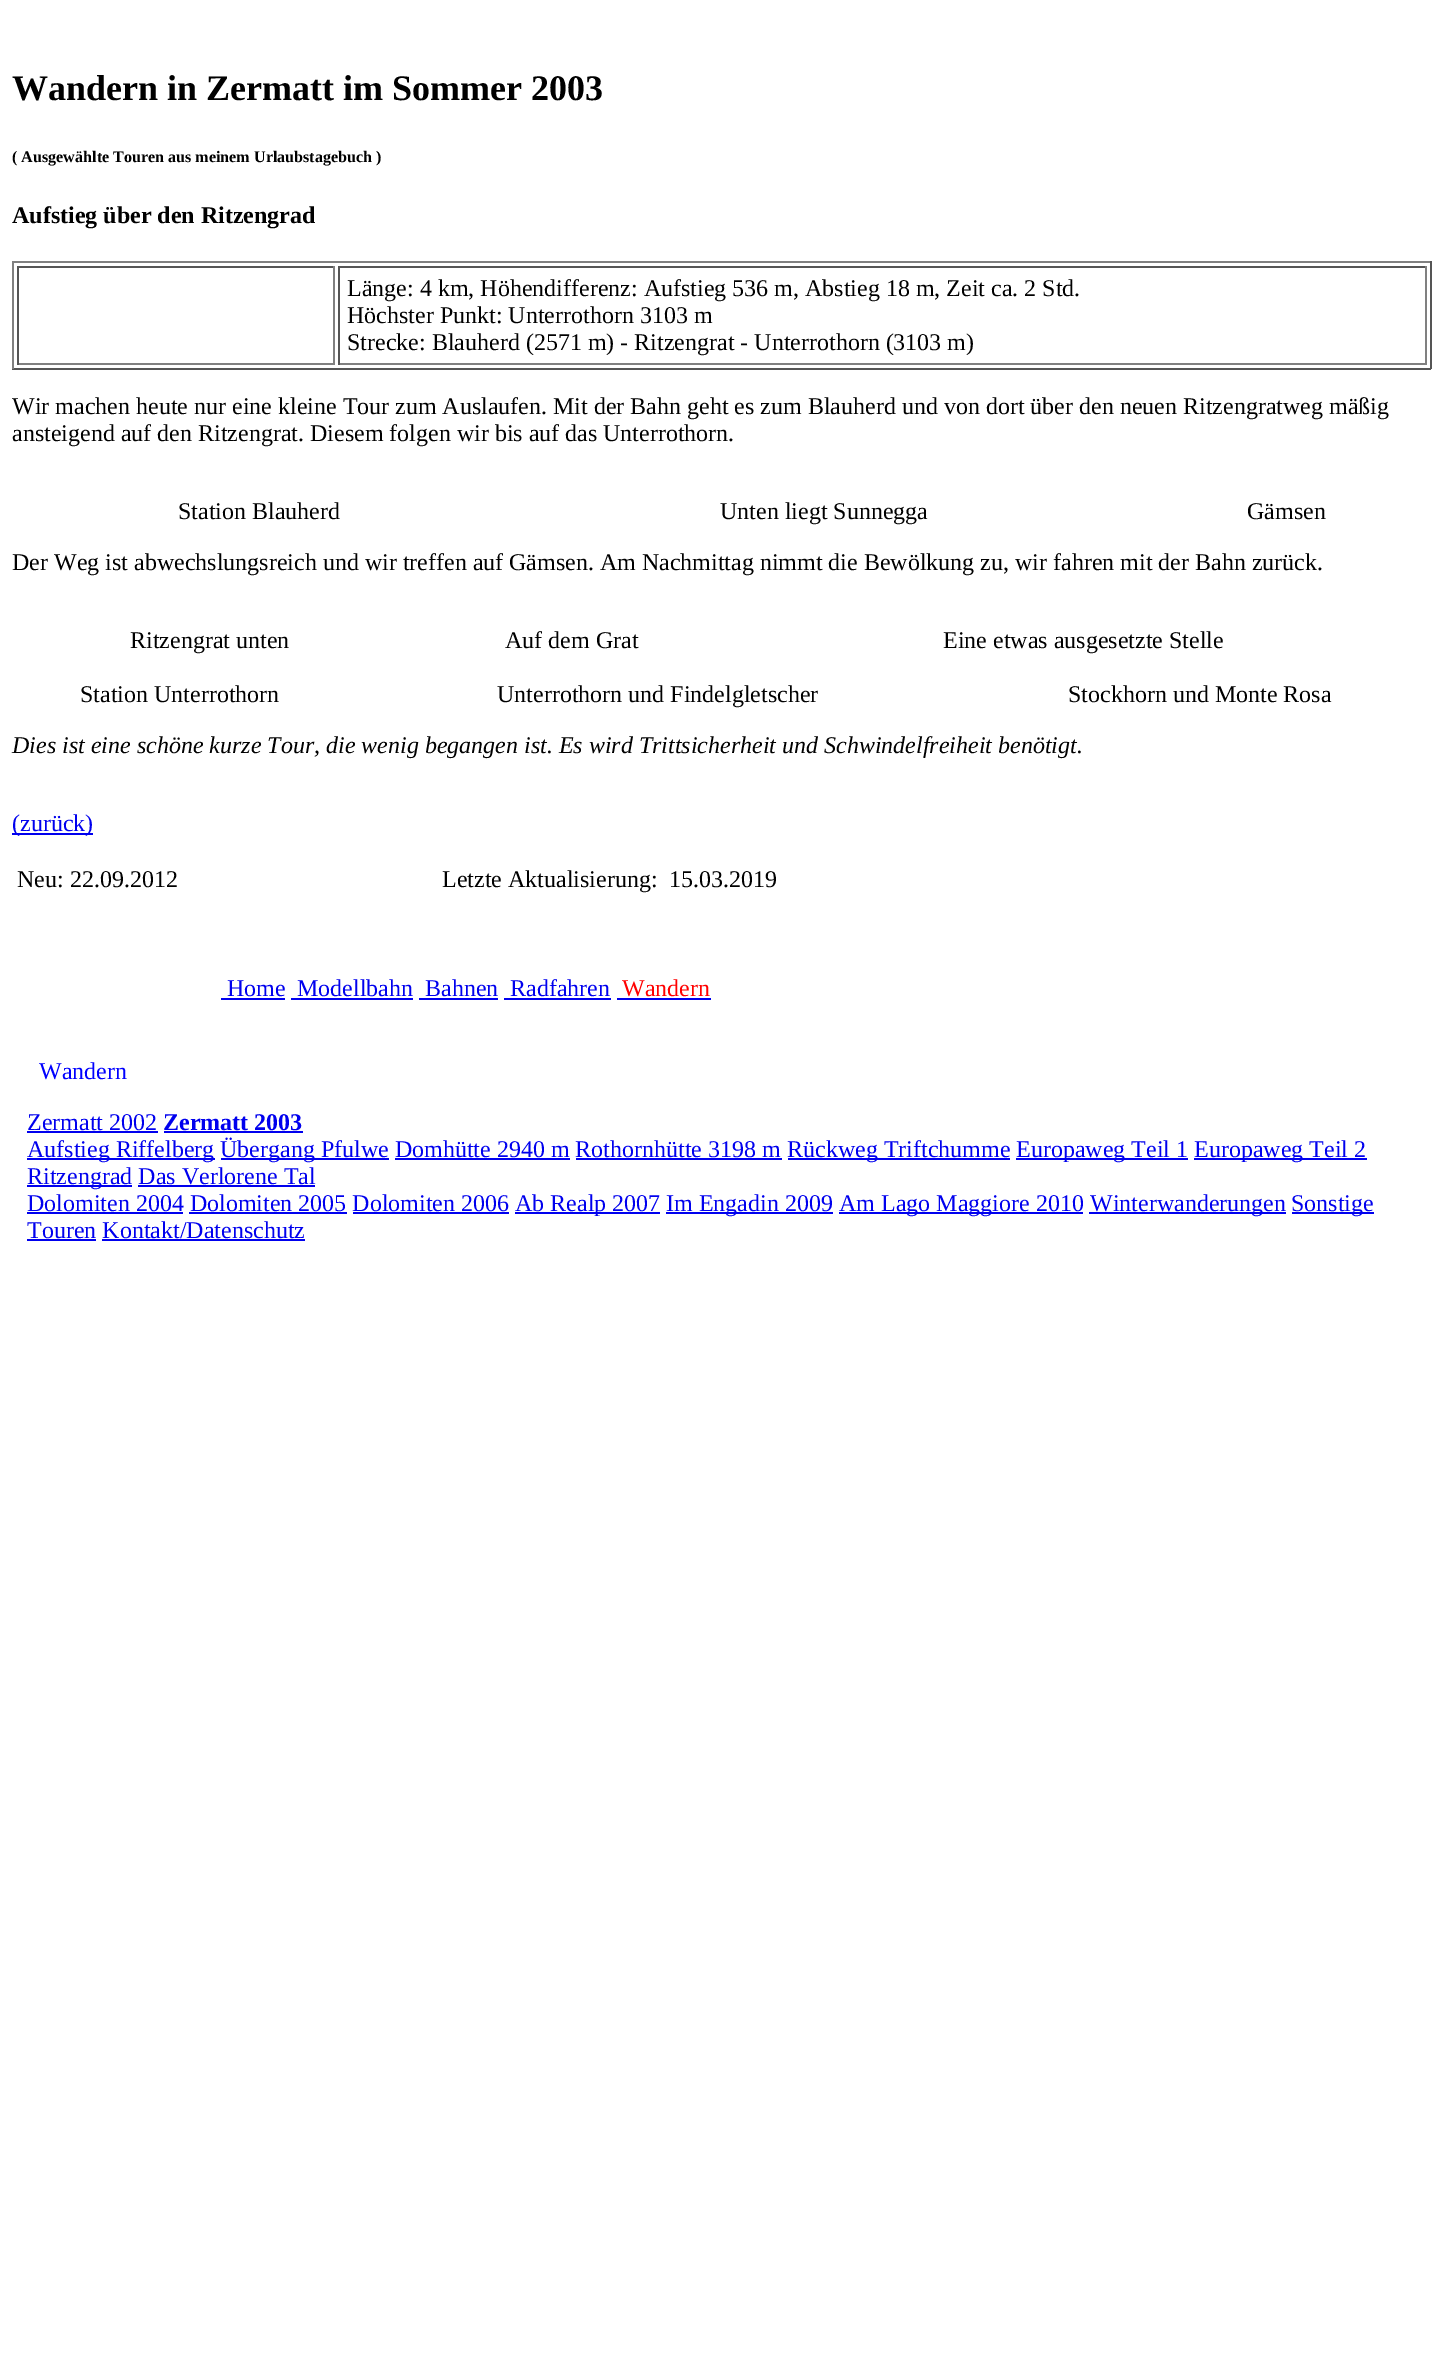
%!PS
<< /PageSize [1442 2364] >> setpagedevice
/C { dup -16 bitshift 255 div exch dup -8 bitshift 255 and 255 div exch 255 and 255 div setrgbcolor } def
/F { [ exch dup neg 0 0 3 -1 roll 0 0 ] selectfont } def
/T { moveto show } def
/R { rectfill } def
0 2364 translate 1 -1 scale
4 setmiterlimit
16#FFFFFF C
0 0 1442 2364 R
/LiberationSerif-Bold 36 F
16#000000 C
(Wandern in Zermatt im Sommer 2003) 12 100 T
/LiberationSerif-Bold 16.1 F
(\( Ausgewählte Touren aus meinem Urlaubstagebuch \)) 12 162 T
/LiberationSerif-Bold 24 F
(Aufstieg über den Ritzengrad) 12 223 T
16#808080 C
12 261 1419 2 R
16#555555 C
1430 261 2 108 R
12 368 1419 2 R
16#808080 C
12 261 2 108 R
16#555555 C
17 266 318 2 R
16#808080 C
333 266 2 99 R
17 363 318 2 R
16#555555 C
17 266 2 99 R
338 266 1089 2 R
16#808080 C
1425 266 2 99 R
338 363 1089 2 R
16#555555 C
338 266 2 99 R
/LiberationSerif-Regular 24 F
16#000000 C
(Länge: 4 km, Höhendifferenz: Aufstieg 536 m, Abstieg 18 m, Zeit ca. 2 Std.) 347 296 T
(Höchster Punkt: Unterrothorn 3103 m) 347 323 T
(Strecke: Blauherd \(2571 m\) - Ritzengrat - Unterrothorn \(3103 m\)) 347 350 T
(Wir machen heute nur eine kleine Tour zum Auslaufen. Mit der Bahn geht es zum Blauherd und von dort über den neuen Ritzengratweg mäßig) 12 414 T
(ansteigend auf den Ritzengrat. Diesem folgen wir bis auf das Unterrothorn.) 12 441 T
(Station Blauherd) 178 519 T
(Unten liegt Sunnegga) 720 519 T
(Gämsen) 1247 519 T
(Der Weg ist abwechslungsreich und wir treffen auf Gämsen. Am Nachmittag nimmt die Bewölkung zu, wir fahren mit der Bahn zurück.) 12 570 T
(Ritzengrat unten) 130 648 T
(Auf dem Grat) 505 648 T
(Eine etwas ausgesetzte Stelle) 943 648 T
(Station Unterrothorn) 80 702 T
(Unterrothorn und Findelgletscher) 497 702 T
(Stockhorn und Monte Rosa) 1068 702 T
/LiberationSerif-Italic 24 F
(Dies ist eine schöne kurze Tour, die wenig begangen ist. Es wird Trittsicherheit und Schwindelfreiheit benötigt.) 12 753 T
16#0000EE C
12 833 81 2 R
/LiberationSerif-Regular 24 F
(\(zurück\)) 12 831 T
16#000000 C
(Neu: 22.09.2012) 17 887 T
(Letzte Aktualisierung:  15.03.2019) 442 887 T
16#0000EE C
(Home) 227 996 T
221 998 64 2 R
(Modellbahn) 297 996 T
291 998 122 2 R
(Bahnen) 425 996 T
419 998 79 2 R
(Radfahren) 510 996 T
504 998 107 2 R
16#FF0000 C
(Wandern) 622 996 T
16#0000EE C
617 998 94 2 R
16#0000FF C
(Wandern) 39 1079 T
16#0000EE C
(Zermatt 2002) 27 1130 T
27 1131 131 2 R
/LiberationSerif-Bold 24 F
(Zermatt 2003) 163 1130 T
164 1131 139 2 R
27 1158 188 2 R
/LiberationSerif-Regular 24 F
(Aufstieg Riffelberg) 27 1157 T
221 1158 168 2 R
(Übergang Pfulwe Domhütte 2940 m Rothornhütte 3198 m) 220 1157 T
788 1158 222 2 R
(Rückweg Triftchumme) 787 1157 T
1016 1158 172 2 R
(Europaweg Teil 1) 1016 1157 T
1194 1158 173 2 R
(Europaweg Teil 2) 1194 1157 T
395 1158 175 2 R
576 1158 206 2 R
27 1185 105 2 R
(Ritzengrad Das Verlorene Tal) 27 1184 T
138 1185 177 2 R
(Dolomiten 2004 Dolomiten 2005 Dolomiten 2006) 27 1211 T
27 1212 156 2 R
515 1212 145 2 R
(Ab Realp 2007) 515 1211 T
666 1212 167 2 R
(Im Engadin 2009) 666 1211 T
839 1212 244 2 R
(Am Lago Maggiore 2010) 839 1211 T
1089 1212 197 2 R
(Winterwanderungen) 1090 1211 T
1292 1212 82 2 R
(Sonstige) 1291 1211 T
189 1212 158 2 R
353 1212 156 2 R
(Touren Kontakt/Datenschutz) 27 1238 T
27 1239 69 2 R
102 1239 203 2 R
showpage
